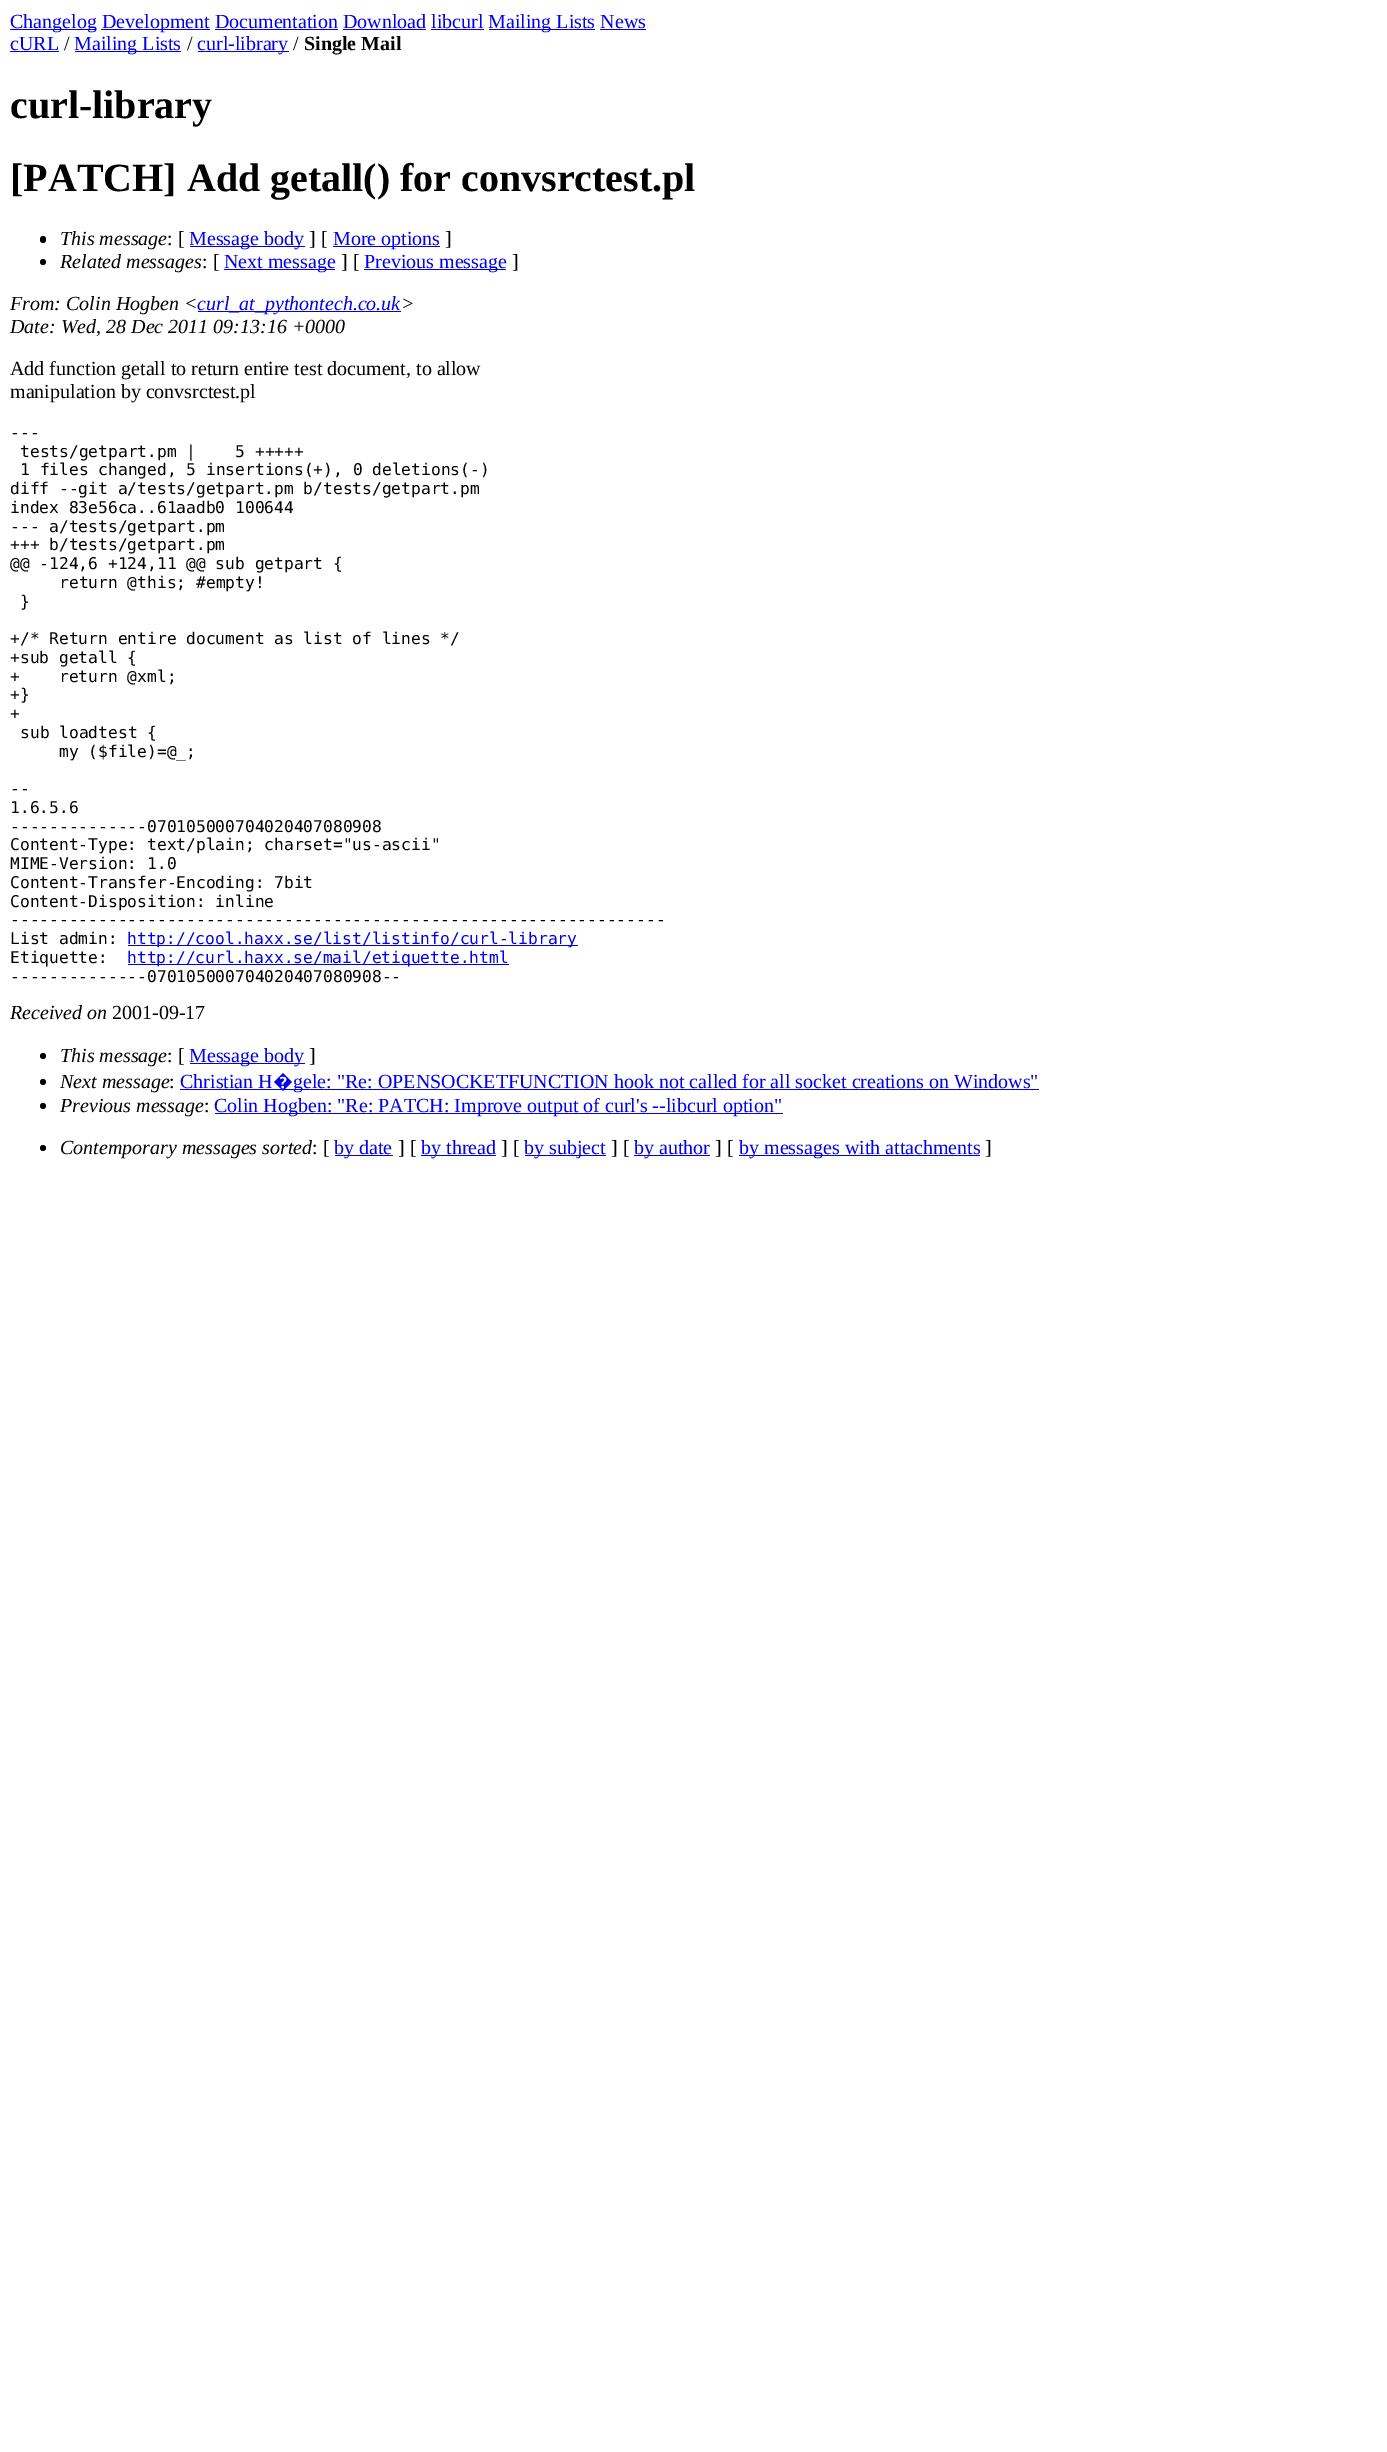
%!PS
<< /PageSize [1387 2452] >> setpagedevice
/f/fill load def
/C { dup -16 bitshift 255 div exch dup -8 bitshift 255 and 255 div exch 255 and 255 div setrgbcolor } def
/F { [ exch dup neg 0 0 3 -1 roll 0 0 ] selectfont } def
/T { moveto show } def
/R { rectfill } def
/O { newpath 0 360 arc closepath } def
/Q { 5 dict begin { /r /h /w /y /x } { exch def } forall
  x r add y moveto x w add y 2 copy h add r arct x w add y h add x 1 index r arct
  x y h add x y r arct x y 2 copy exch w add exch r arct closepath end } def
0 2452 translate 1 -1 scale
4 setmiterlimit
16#FFFFFF C
0 0 1387 2452 R
16#0000EE C
10 29 86 1 R
/LiberationSerif-Regular 20 F
(Changelog) 10 28 T
101 29 109 1 R
(Development Documentation Download libcurl) 102 28 T
489 29 106 1 R
(Mailing Lists News) 488 28 T
215 29 123 1 R
343 29 83 1 R
431 29 53 1 R
600 29 46 1 R
(cURL) 10 50 T
10 51 49 1 R
16#000000 C
(/) 64 50 T
16#0000EE C
75 51 106 1 R
(Mailing Lists) 74 50 T
16#000000 C
(/) 187 50 T
16#0000EE C
198 51 91 1 R
(curl-library) 197 50 T
16#000000 C
(/) 293 50 T
/LiberationSerif-Bold 20 F
(Single Mail) 304 50 T
/LiberationSerif-Bold 40 F
(curl-library) 10 118 T
([PATCH] Add getall\(\) for convsrctest.pl) 10 191 T
40 236 6 7 3 Q f
/LiberationSerif-Italic 20 F
(This message) 60 245 T
/LiberationSerif-Regular 20 F
(: [) 167 245 T
16#0000EE C
190 246 115 1 R
(Message body) 189 245 T
16#000000 C
(] [) 309 245 T
16#0000EE C
333 246 107 1 R
(More options) 333 245 T
16#000000 C
(]) 445 245 T
43 262 3 O f
/LiberationSerif-Italic 20 F
(Related messages) 60 268 T
/LiberationSerif-Regular 20 F
(: [) 202 268 T
16#0000EE C
224 269 111 1 R
(Next message) 224 268 T
16#000000 C
(] [) 341 268 T
16#0000EE C
364 269 142 1 R
(Previous message) 364 268 T
16#000000 C
(]) 512 268 T
/LiberationSerif-Italic 20 F
(From: Colin Hogben <) 10 310 T
16#0000EE C
198 311 203 1 R
(curl_at_pythontech.co.uk) 197 310 T
16#000000 C
(>) 401 310 T
(Date: Wed, 28 Dec 2011 09:13:16 +0000) 10 333 T
/LiberationSerif-Regular 20 F
(Add function getall to return entire test document, to allow) 10 375 T
(manipulation by convsrctest.pl) 10 398 T
/DejaVuSansMono-Regular 16.25 F
(---) 10 438 T
(tests/getpart.pm |    5 +++++) 20 457 T
(1 files changed, 5 insertions\(+\), 0 deletions\(-\)) 20 475 T
(diff --git a/tests/getpart.pm b/tests/getpart.pm) 10 494 T
(index 83e56ca..61aadb0 100644) 10 513 T
(--- a/tests/getpart.pm) 10 532 T
(+++ b/tests/getpart.pm) 10 550 T
(@@ -124,6 +124,11 @@ sub getpart {) 10 569 T
(return @this; #empty!) 59 588 T
(}) 20 607 T
(+/* Return entire document as list of lines */) 10 644 T
(+sub getall {) 10 663 T
(+    return @xml;) 10 682 T
(+}) 10 700 T
(+) 10 719 T
(sub loadtest {) 20 738 T
(my \($file\)=@_;) 59 757 T
(--) 10 794 T
(1.6.5.6) 10 813 T
(--------------070105000704020407080908) 10 832 T
(Content-Type: text/plain; charset="us-ascii") 10 850 T
(MIME-Version: 1.0) 10 869 T
(Content-Transfer-Encoding: 7bit) 10 888 T
(Content-Disposition: inline) 10 907 T
(-------------------------------------------------------------------) 10 925 T
(List admin:) 10 944 T
16#0000EE C
128 945 450 1 R
(http://cool.haxx.se/list/listinfo/curl-library) 127 944 T
16#000000 C
(Etiquette:) 10 963 T
16#0000EE C
128 964 381 1 R
(http://curl.haxx.se/mail/etiquette.html) 127 963 T
16#000000 C
(--------------070105000704020407080908--) 10 982 T
/LiberationSerif-Italic 20 F
(Received on) 10 1019 T
/LiberationSerif-Regular 20 F
(2001-09-17) 112 1019 T
43 1056 3 O f
/LiberationSerif-Italic 20 F
(This message) 60 1062 T
/LiberationSerif-Regular 20 F
(: [) 167 1062 T
16#0000EE C
190 1063 115 1 R
(Message body) 189 1062 T
16#000000 C
(]) 309 1062 T
43 1082 3 O f
/LiberationSerif-Italic 20 F
(Next message) 60 1088 T
/LiberationSerif-Regular 20 F
(:) 169 1088 T
16#0000EE C
(Christian H) 180 1088 T
180 1089 859 1 R
/NotoSans-Regular 20 F
(�) 273 1088 T
/LiberationSerif-Regular 20 F
(gele: "Re: OPENSOCKETFUNCTION hook not called for all socket creations on Windows") 293 1088 T
16#000000 C
43 1106 3 O f
/LiberationSerif-Italic 20 F
(Previous message) 60 1112 T
/LiberationSerif-Regular 20 F
(:) 204 1112 T
16#0000EE C
215 1113 568 1 R
(Colin Hogben: "Re: PATCH: Improve output of curl's --libcurl option") 214 1112 T
16#000000 C
43 1148 3 O f
/LiberationSerif-Italic 20 F
(Contemporary messages sorted) 60 1154 T
/LiberationSerif-Regular 20 F
(: [) 312 1154 T
16#0000EE C
335 1155 58 1 R
(by date) 334 1154 T
16#000000 C
(] [) 398 1154 T
16#0000EE C
421 1155 75 1 R
(by thread) 421 1154 T
16#000000 C
(] [) 501 1154 T
16#0000EE C
525 1155 81 1 R
(by subject) 524 1154 T
16#000000 C
(] [) 611 1154 T
16#0000EE C
634 1155 76 1 R
(by author) 634 1154 T
16#000000 C
(] [) 715 1154 T
16#0000EE C
739 1155 241 1 R
(by messages with attachments) 739 1154 T
16#000000 C
(]) 985 1154 T
showpage
